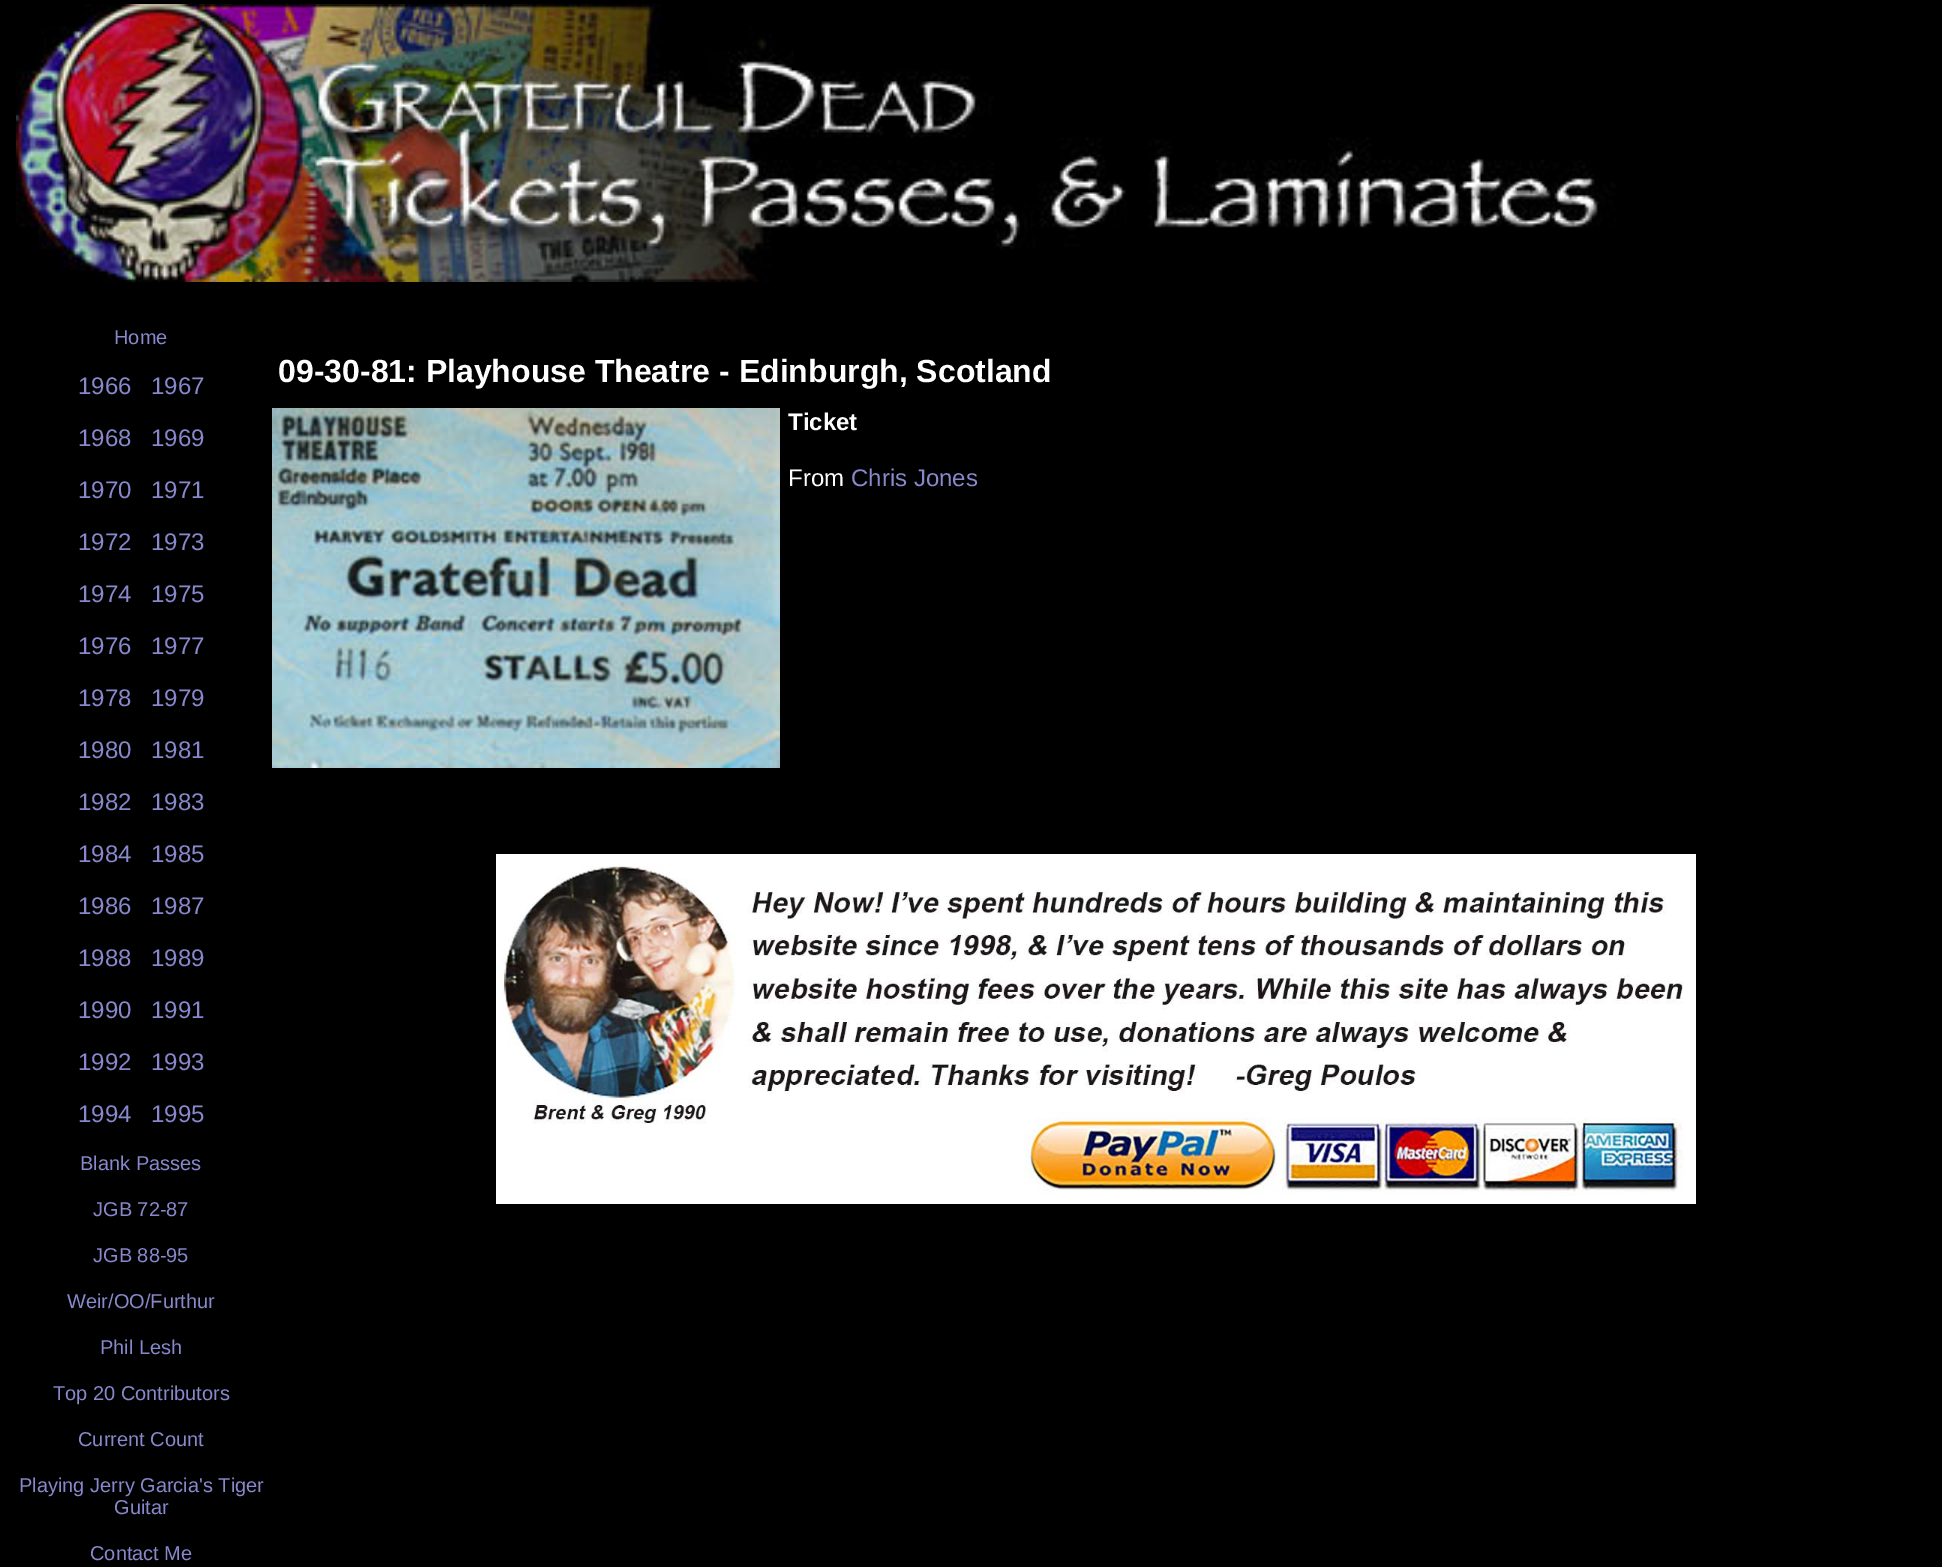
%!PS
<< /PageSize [1942 1567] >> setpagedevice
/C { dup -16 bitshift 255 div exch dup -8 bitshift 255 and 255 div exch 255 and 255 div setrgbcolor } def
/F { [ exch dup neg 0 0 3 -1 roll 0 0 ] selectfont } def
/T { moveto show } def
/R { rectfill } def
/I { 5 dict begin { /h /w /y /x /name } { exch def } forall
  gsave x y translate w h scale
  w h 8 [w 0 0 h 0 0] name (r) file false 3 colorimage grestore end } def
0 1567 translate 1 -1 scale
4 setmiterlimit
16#000000 C
0 0 1942 1567 R
(1.rgb) 16 4 1600 278 I
/LiberationSans-Regular 20 F
16#8888CC C
(Home) 114 344 T
/LiberationSans-Regular 24 F
(1966) 78 394 T
(1967) 151 394 T
(1968) 78 446 T
(1969) 151 446 T
(1970) 78 498 T
(1971) 151 498 T
(1972) 78 550 T
(1973) 151 550 T
(1974) 78 602 T
(1975) 151 602 T
(1976) 78 654 T
(1977) 151 654 T
(1978) 78 706 T
(1979) 151 706 T
(1980) 78 758 T
(1981) 151 758 T
(1982) 78 810 T
(1983) 151 810 T
(1984) 78 862 T
(1985) 151 862 T
(1986) 78 914 T
(1987) 151 914 T
(1988) 78 966 T
(1989) 151 966 T
(1990) 78 1018 T
(1991) 151 1018 T
(1992) 78 1070 T
(1993) 151 1070 T
(1994) 78 1122 T
(1995) 151 1122 T
/LiberationSans-Regular 20 F
(Blank Passes) 80 1170 T
(JGB 72-87) 93 1216 T
(JGB 88-95) 93 1262 T
(Weir/OO/Furthur) 67 1308 T
(Phil Lesh) 100 1354 T
(Top 20 Contributors) 53 1400 T
(Current Count) 78 1446 T
(Playing Jerry Garcia's Tiger) 19 1492 T
(Guitar) 114 1514 T
(Contact Me) 90 1560 T
/LiberationSans-Bold 32 F
16#FFFFFF C
(09-30-81: Playhouse Theatre - Edinburgh, Scotland) 278 382 T
(2.rgb) 272 408 508 360 I
/LiberationSans-Bold 24 F
(Ticket) 788 430 T
/LiberationSans-Regular 24 F
(From) 788 486 T
16#8888CC C
(Chris Jones) 851 486 T
(3.rgb) 496 854 1200 350 I
showpage
